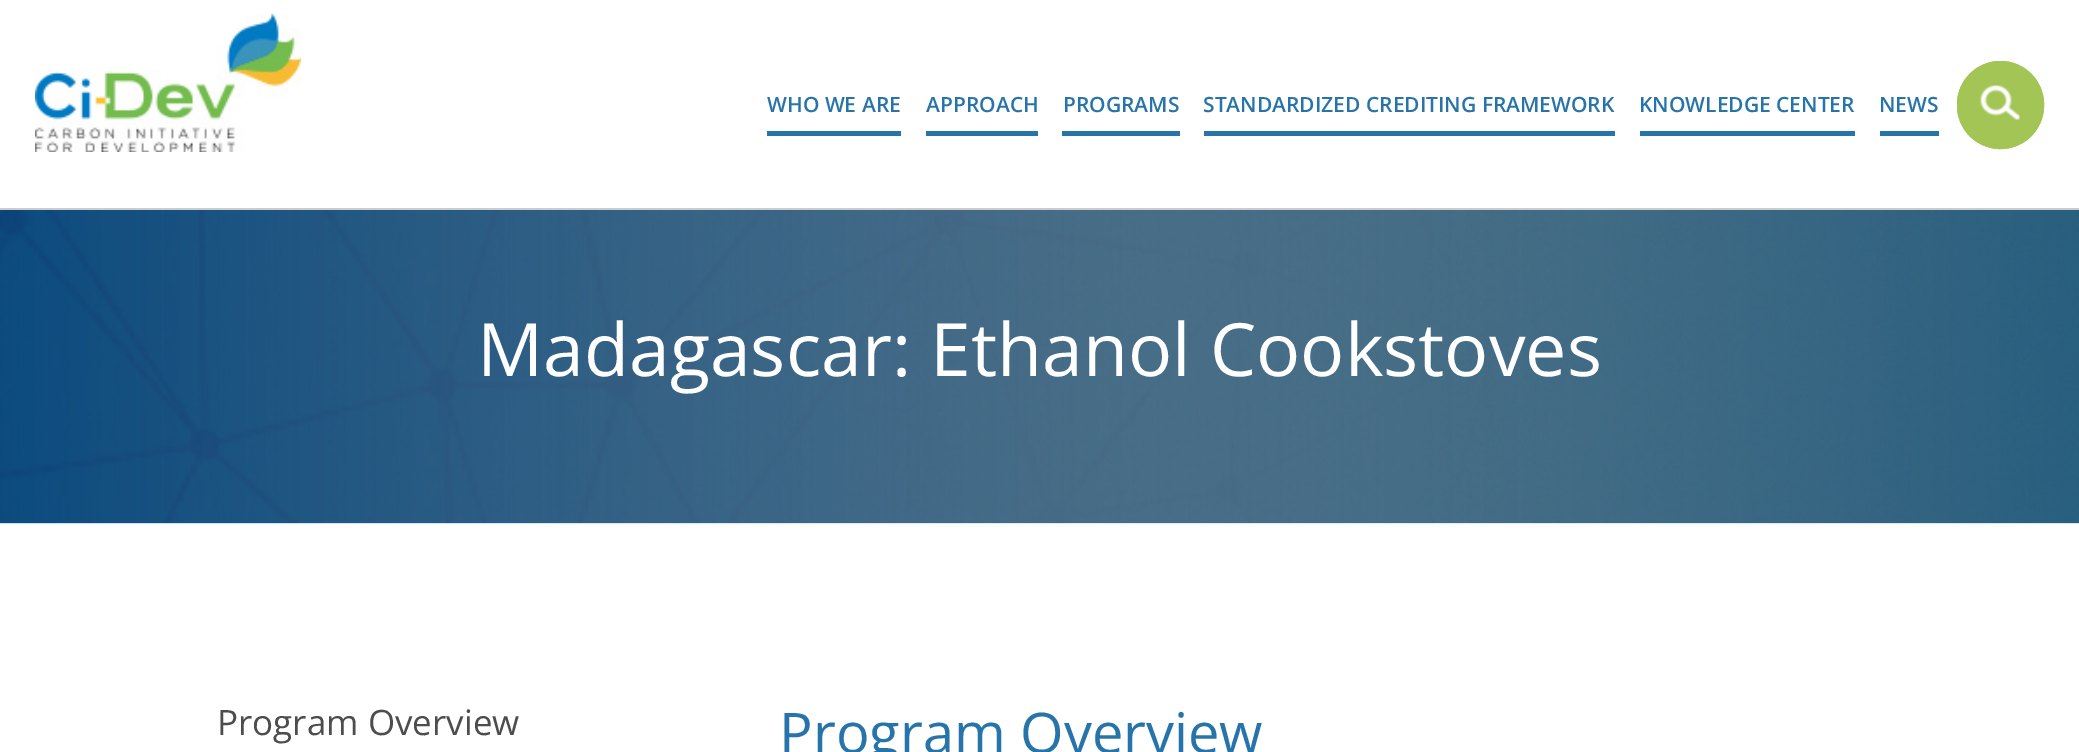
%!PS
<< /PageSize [2079 752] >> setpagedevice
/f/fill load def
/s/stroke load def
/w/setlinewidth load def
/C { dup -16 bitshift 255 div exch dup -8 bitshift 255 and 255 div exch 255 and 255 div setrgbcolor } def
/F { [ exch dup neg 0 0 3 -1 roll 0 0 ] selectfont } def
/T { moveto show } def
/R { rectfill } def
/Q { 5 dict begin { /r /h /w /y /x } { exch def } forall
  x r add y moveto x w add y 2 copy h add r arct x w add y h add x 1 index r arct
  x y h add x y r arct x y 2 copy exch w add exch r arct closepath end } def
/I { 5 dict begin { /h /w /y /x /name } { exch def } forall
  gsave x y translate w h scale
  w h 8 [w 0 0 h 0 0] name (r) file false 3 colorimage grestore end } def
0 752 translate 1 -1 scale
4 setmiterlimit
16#FFFFFF C
0 0 2079 752 R
16#CCCCCC C
0 208 2079 2 R
(1.rgb) 35 14 266 138 I
/OpenSans-SemiBold 21 F
16#2674A9 C
(WHO WE ARE) 767 112 T
767 131 134 5 R
(APPROACH) 926 112 T
926 131 112 5 R
(PROGRAMS) 1063 112 T
1062 131 118 5 R
(STANDARDIZED CREDITING FRAMEWORK) 1203 112 T
1204 131 411 5 R
(KNOWLEDGE CENTER) 1639 112 T
1640 131 215 5 R
(NEWS) 1879 112 T
1880 131 59 5 R
16#A3C555 C
1957 61 87 88 43.5 Q f
(2.rgb) 1980 85 40 35 I
2 w
1958 62 85 86 42.5 Q s
(3.rgb) 0 210 2079 314 I
/OpenSans-Regular 73.5 F
16#FFFFFF C
(Madagascar: Ethanol Cookstoves) 477 376 T
/OpenSans-Regular 35 F
16#4D4D4D C
(Program Overview) 217 735 T
/OpenSans-Regular 56 F
16#2674A9 C
(Program Overview) 779 753 T
showpage
